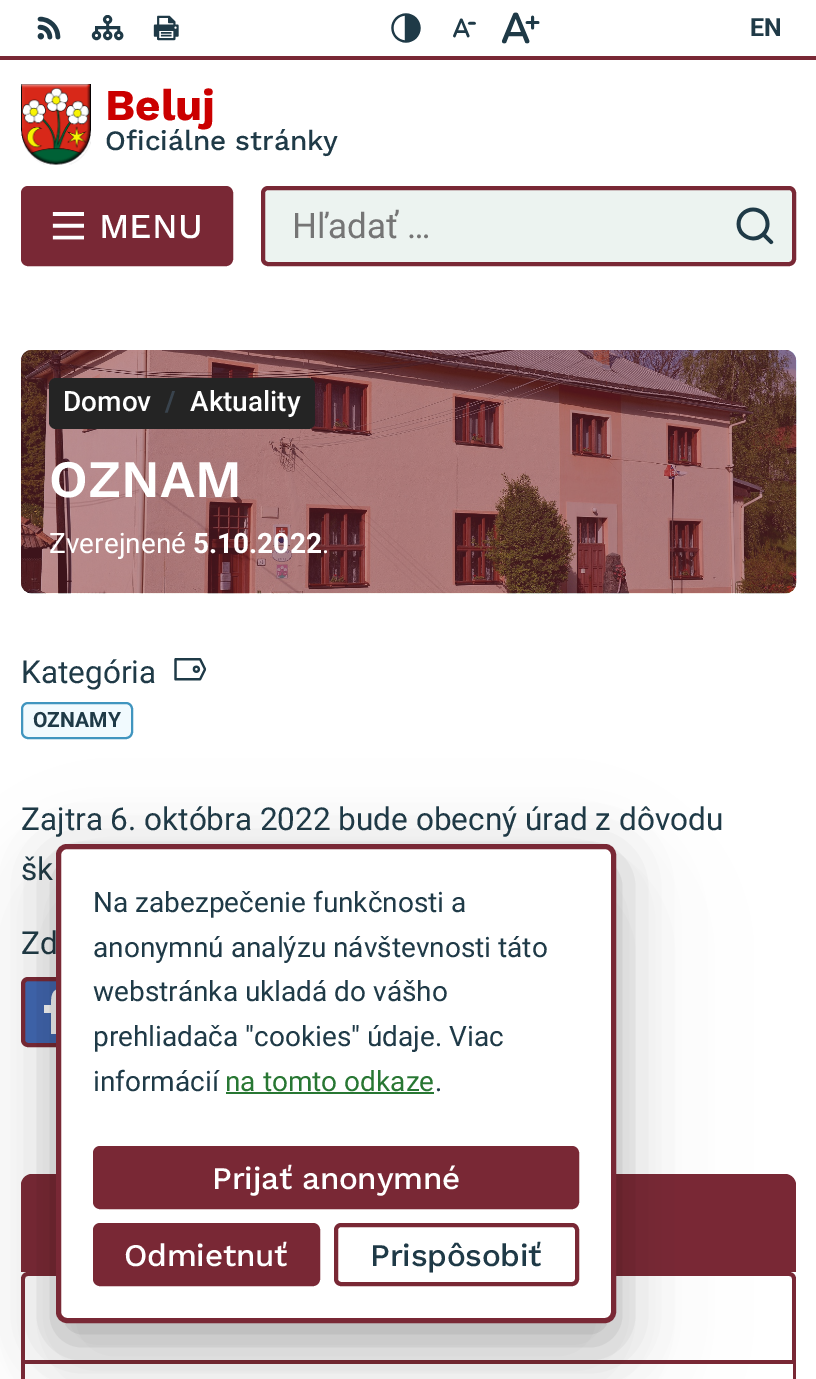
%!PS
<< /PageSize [816 1379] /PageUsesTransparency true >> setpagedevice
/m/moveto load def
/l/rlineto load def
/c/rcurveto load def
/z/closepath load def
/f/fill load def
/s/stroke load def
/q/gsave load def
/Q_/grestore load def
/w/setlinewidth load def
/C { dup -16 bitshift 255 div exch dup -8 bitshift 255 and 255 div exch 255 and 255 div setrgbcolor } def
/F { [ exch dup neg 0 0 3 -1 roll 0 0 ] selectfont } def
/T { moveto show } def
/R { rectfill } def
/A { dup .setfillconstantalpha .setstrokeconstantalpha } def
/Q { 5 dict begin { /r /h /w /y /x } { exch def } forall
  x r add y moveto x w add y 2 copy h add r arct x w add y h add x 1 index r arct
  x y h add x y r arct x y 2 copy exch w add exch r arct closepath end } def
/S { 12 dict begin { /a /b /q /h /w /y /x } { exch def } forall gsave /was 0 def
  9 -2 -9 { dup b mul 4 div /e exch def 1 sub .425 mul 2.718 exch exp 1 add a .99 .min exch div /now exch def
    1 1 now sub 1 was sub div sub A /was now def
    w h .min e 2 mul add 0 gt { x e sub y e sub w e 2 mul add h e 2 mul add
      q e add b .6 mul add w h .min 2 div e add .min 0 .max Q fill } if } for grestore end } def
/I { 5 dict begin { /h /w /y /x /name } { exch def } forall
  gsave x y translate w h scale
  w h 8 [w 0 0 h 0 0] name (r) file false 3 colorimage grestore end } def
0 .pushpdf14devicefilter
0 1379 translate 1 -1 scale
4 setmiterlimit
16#FFFFFF C
0 0 816 1379 R
(1.rgb) 37 16 24 24 I
(2.rgb) 91 15 33 26 I
(3.rgb) 153 15 26 26 I
(4.rgb) 391 13 30 30 I
(5.rgb) 453 18 23 20 I
(6.rgb) 501 12 39 32 I
/Roboto-Bold 25 F
16#1F3A47 C
(EN) 750 36 T
16#792835 C
0 56 816 4 R
(7.rgb) 21 84 70 81 I
/WorkSans-Bold 44 F
16#CB0000 C
(Beluj) 105 120 T
/WorkSans-Medium 28 F
16#1F3A47 C
(Oficiálne stránky) 105 150 T
16#792835 C
23 188 208 76 5 Q q f Q_
4 w
s
(8.rgb) 52 212 32 28 I
/WorkSans-Medium 35 F
16#FFFFFF C
(MENU) 99 238 T
16#ECF3F0 C
263 188 531 76 5 Q q f Q_
16#792835 C
s
/Roboto-Regular 35 F
16#757575 C
(Hľadať …) 292 238 T
(9.rgb) 736 207 38 38 I
16#792835 C
21 350 775 243 11 Q f
(10.rgb) 20 350 777 244 I
0.5 A
21 350 775 243 11 Q f
1 A
16#242424 C
49 378 266 51 7 Q f
/Roboto-Medium 28 F
16#FFFFFF C
(Domov) 63 411 T
/Roboto-Bold 28 F
16#39434D C
(/) 165 411 T
/Roboto-Medium 28 F
16#FFFFFF C
(Aktuality) 190 411 T
/WorkSans-SemiBold 52.5 F
(OZNAM) 49 497 T
/Roboto-Regular 28 F
(Zverejnené) 49 553 T
/Roboto-Bold 28 F
(5.10.2022) 193 553 T
/Roboto-Regular 28 F
(.) 322 553 T
/Roboto-Regular 31.5 F
16#1F3A47 C
(Kategória) 21 683 T
(11.rgb) 174 658 33 23 I
16#F1FAFE C
22 703 110 35 6 Q q f Q_
16#4095BF C
2 w
s
/Roboto-Bold 21 F
16#1F3A47 C
(OZNAMY) 33 727 T
/Roboto-Regular 31.5 F
(Zajtra 6. októbra 2022 bude obecný úrad z dôvodu) 21 830 T
(šk) 21 880 T
(Zd) 21 954 T
16#4267B2 C
23 979 66 66 5 Q q f Q_
16#792835 C
4 w
s
16#FFFFFF C
60 1034 m 0 -21 l 6 0 l 1 -8 l -7 0 l 0 -8 -1 -9 8 -9 c 0 -7 l -15 -2 -17 3 -17 16 c -7 0 l 0 8 l 7 0 l 0 21 l 8 0 l z f
16#792835 C
32 1174 m 753 0 l 6 0 11 5 11 11 c 0 87 l -775 0 l 0 -87 l 0 -6 5 -11 11 -11 c z f
28 1272 m -4 0 -7 3 -7 7 c 0 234 l 0 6 5 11 11 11 c 753 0 l 6 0 11 -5 11 -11 c 0 -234 l 0 -4 -3 -7 -7 -7 c z 28 1276 m -2 0 -3 1 -3 3 c 0 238 l 0 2 1 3 3 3 c 761 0 l 2 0 3 -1 3 -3 c 0 -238 l 0 -2 -1 -3 -3 -3 c z eofill
16#FFFFFF C
792 1364 1 15 R
16#792835 C
25 1360 768 4 R
16#000000 C
56 896 560 480 11 79 .05 S
56 879 560 479 11 52.5 .05 S
56 861 560 480 11 26 .25 S
16#FFFFFF C
58.5 846.5 555 474 8.5 Q q f Q_
16#792835 C
5 w
s
/Roboto-Regular 28 F
16#1F3A47 C
(Na zabezpečenie funkčnosti a) 93 912 T
(anonymnú analýzu návštevnosti táto) 93 957 T
(webstránka ukladá do vášho) 93 1001 T
(prehliadača "cookies" údaje. Viac) 93 1046 T
(informácií) 93 1091 T
16#287733 C
(na tomto odkaze) 225 1091 T
226 1092 208 2 R
16#1F3A47 C
(.) 435 1091 T
16#792835 C
95 1148 482 59 5 Q q f Q_
4 w
s
/WorkSans-Medium 31.5 F
16#FFFFFF C
212 1189 m -.25 0 (Prijať anonymné) ashow
16#792835 C
95 1225 223 59 5 Q q f Q_
s
16#FFFFFF C
124 1266 m -.25 0 (Odmietnuť) ashow
16#792835 C
336 1225 241 59 5 Q s
16#1F3A47 C
370 1266 m -.25 0 (Prispôsobiť) ashow
.poppdf14devicefilter showpage
